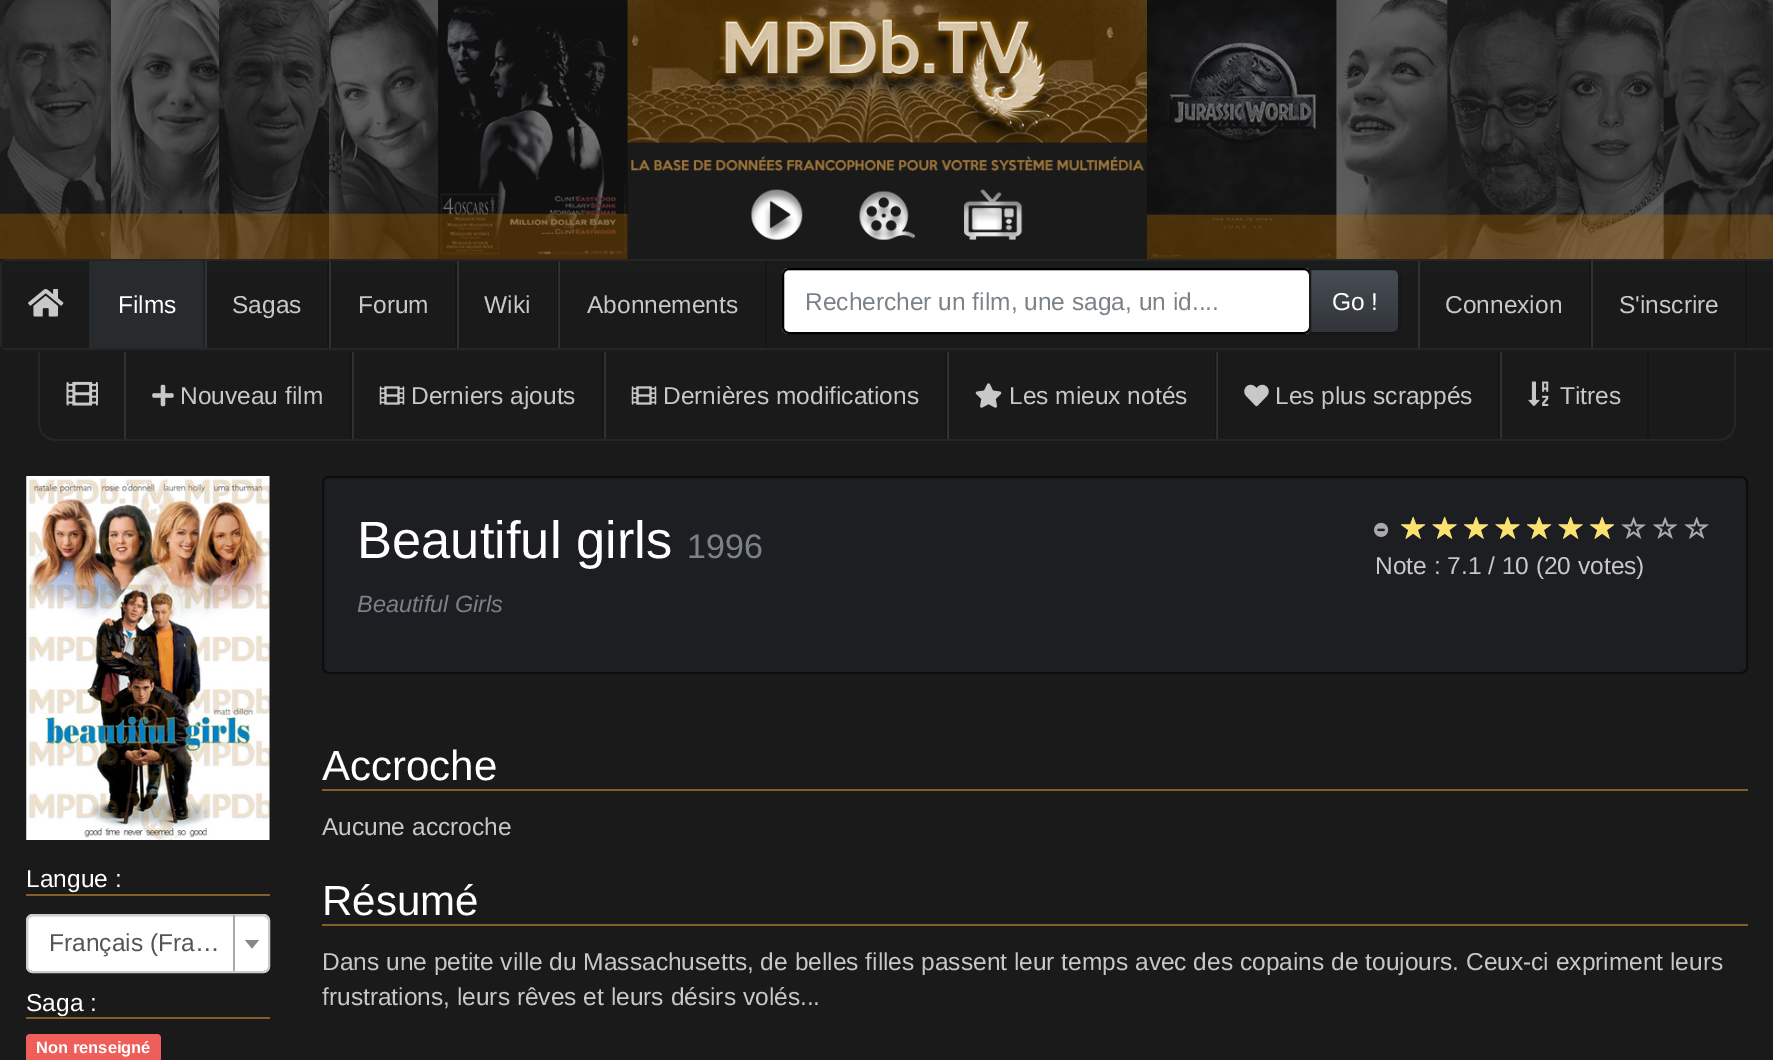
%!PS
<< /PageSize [1773 1060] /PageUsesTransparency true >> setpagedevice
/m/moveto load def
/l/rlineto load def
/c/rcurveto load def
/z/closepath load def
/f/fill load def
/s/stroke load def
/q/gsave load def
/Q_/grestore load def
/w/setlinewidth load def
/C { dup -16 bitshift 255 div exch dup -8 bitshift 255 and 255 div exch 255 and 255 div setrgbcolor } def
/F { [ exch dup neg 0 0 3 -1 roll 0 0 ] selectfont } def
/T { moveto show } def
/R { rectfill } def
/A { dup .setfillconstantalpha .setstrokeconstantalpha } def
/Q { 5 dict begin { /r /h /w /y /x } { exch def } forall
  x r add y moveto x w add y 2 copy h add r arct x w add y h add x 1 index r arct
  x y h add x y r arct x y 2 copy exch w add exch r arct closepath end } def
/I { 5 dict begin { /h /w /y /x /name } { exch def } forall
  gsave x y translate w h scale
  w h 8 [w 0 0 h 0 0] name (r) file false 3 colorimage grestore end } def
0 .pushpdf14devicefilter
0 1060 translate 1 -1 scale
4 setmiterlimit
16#1A1A1A C
0 0 1773 1060 R
16#313131 C
1217 352 1 87 R
(1.rgb) 0 0 1773 259 I
q 2 261 m 1771 0 l 0 87 l -1771 0 l z clip newpath
<< /ShadingType 2 /ColorSpace /DeviceRGB /Coords [887 261 887 348] /Extend [true true] /Function << /FunctionType 3 /Domain [0 1] /Functions [<< /FunctionType 2 /Domain [0 1] /C0 [.125 .137 .157] /C1 [.082 .09 .098] /N 1 >> << /FunctionType 2 /Domain [0 1] /C0 [.082 .09 .098] /C1 [.082 .09 .098] /N 1 >>] /Bounds [.7] /Encode [0 1 0 1] >> >> shfill Q_
16#252525 C
2 w
1 260 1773 89 6 Q s
0.9 A
16#1A1A1A C
2 261 1771 87 R
1 A
(2.rgb) 28 289 36 28 I
16#272B2E C
89 261 114 87 R
16#1F2225 C
203 261 2 87 R
/LiberationSans-Regular 24.5 F
16#FFFFFF C
(Films) 118 313 T
16#151515 C
327 261 2 87 R
16#313131 C
205 261 2 87 R
16#C8C8C8 C
(Sagas) 232 313 T
16#151515 C
455 261 2 87 R
16#313131 C
329 261 2 87 R
16#C8C8C8 C
(Forum) 358 313 T
16#151515 C
557 261 2 87 R
16#313131 C
457 261 2 87 R
16#C8C8C8 C
(Wiki) 484 313 T
16#151515 C
765 261 2 87 R
0.1 A
16#FFFFFF C
558 261 2 87 R
1 A
16#C8C8C8 C
(Abonnements) 587 313 T
16#FFFFFF C
782 268 529 66 7 Q f
16#ECECEC C
789 271 m 515 0 l 3 0 5 3 5 5 c 0 -1 l 0 -3 -2 -5 -5 -5 c -515 0 l -3 0 -5 2 -5 5 c 0 1 l 0 -2 2 -5 5 -5 c z f
16#000000 C
783 269 527 64 6 Q s
16#7A8288 C
(Rechercher un film, une saga, un id....) 805 310 T
16#3A3F44 C
1309 268 m 84 0 l 4 0 7 3 7 7 c 0 52 l 0 4 -3 7 -7 7 c -84 0 l z f
q 1311 270 m 87 0 l 0 63 l -87 0 l z clip newpath
<< /ShadingType 2 /ColorSpace /DeviceRGB /Coords [1355 270 1355 333] /Extend [true true] /Function << /FunctionType 3 /Domain [0 1] /Functions [<< /FunctionType 2 /Domain [0 1] /C0 [.282 .306 .333] /C1 [.227 .247 .267] /N 1 >> << /FunctionType 2 /Domain [0 1] /C0 [.227 .247 .267] /C1 [.192 .208 .224] /N 1 >>] /Bounds [.6] /Encode [0 1 0 1] >> >> shfill Q_
0.6 A
16#000000 C
1310 269 m 83 0 l 3.5 0 6 2.5 6 6 c 0 52 l 0 3.5 -2.5 6 -6 6 c -83 0 l z s
1 A
16#FFFFFF C
(Go !) 1332 310 T
16#151515 C
1589 261 2 87 R
16#313131 C
1418 261 2 87 R
16#C8C8C8 C
(Connexion) 1445 313 T
16#151515 C
1745 261 2 87 R
16#313131 C
1591 261 2 87 R
16#C8C8C8 C
(S'inscrire) 1619 313 T
16#252525 C
38 352 m 1698 0 l 0 72 l 0 9 -8 17 -18 17 c -1662 0 l -10 0 -18 -8 -18 -17 c z 40 352 m 1694 0 l 0 72 l 0 8 -7 15 -16 15 c -1662 0 l -9 0 -16 -7 -16 -15 c z eofill
(3.rgb) 66 381 32 25 I
16#151515 C
350 352 2 87 R
16#313131 C
124 352 2 87 R
(4.rgb) 152 384 22 23 I
16#C8C8C8 C
(Nouveau film) 180 404 T
16#151515 C
602 352 2 87 R
16#313131 C
352 352 2 87 R
(5.rgb) 379 386 26 19 I
16#C8C8C8 C
(Derniers ajouts) 411 404 T
16#151515 C
945 352 2 87 R
16#313131 C
604 352 2 87 R
(5.rgb) 631 386 26 19 I
16#C8C8C8 C
(Dernières modifications) 663 404 T
16#151515 C
1215 352 1 87 R
16#2C2C2C C
1216 352 1 87 R
16#313131 C
947 352 2 87 R
(6.rgb) 975 383 27 25 I
16#C8C8C8 C
(Les mieux notés) 1009 404 T
16#151515 C
1498 352 2 87 R
(7.rgb) 1244 384 25 23 I
16#C8C8C8 C
(Les plus scrappés) 1275 404 T
16#151515 C
1647 352 2 87 R
16#313131 C
1500 352 2 87 R
(8.rgb) 1528 381 21 25 I
16#C8C8C8 C
(Titres) 1560 404 T
(9.rgb) 26 476 244 364 I
16#816029 C
26 894 244 2 R
16#FFFFFF C
(Langue :) 26 887 T
26 914 244 59 7 Q f
16#ECECEC C
33 917 m 229 0 l 3 0 6 2 6 5 c 0 -3 0 -6 -4 -7 c -232 0 l -4 1 -4 4 -4 7 c 0 -3 2 -5 5 -5 c z f
16#CCCCCC C
27 915 242 57 6 Q s
16#555555 C
(Français \(Fra…) 49 951 T
16#AAAAAA C
233 915 2 56 R
16#888888 C
245 940 m 14 0 l -7 8.5 l z f
16#816029 C
26 1017 244 2 R
16#FFFFFF C
(Saga :) 26 1011 T
16#EE5F5B C
26 1034 135 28 4 Q f
/LiberationSans-Bold 16.5 F
16#FFFFFF C
(Non renseigné) 36 1053 T
16#1C1E22 C
323 477 1424 196 6 Q q f Q_
16#0C0D0E C
s
/LiberationSans-Regular 52.5 F
16#FFFFFF C
(Beautiful girls) 357 558 T
/LiberationSans-Regular 34 F
16#7A8288 C
(1996) 687 558 T
(10.rgb) 1374 522 15 15 I
(11.rgb) 1401 516 25 23 I
(12.rgb) 1432 516 25 23 I
(11.rgb) 1464 516 25 23 I
(12.rgb) 1495 516 25 23 I
(11.rgb) 1527 516 25 23 I
(12.rgb) 1558 516 25 23 I
(11.rgb) 1590 516 25 23 I
(12.rgb) 1621 516 25 23 I
(11.rgb) 1653 516 25 23 I
(12.rgb) 1684 516 25 23 I
(13.rgb) 1401 516 25 23 I
(14.rgb) 1432 516 25 23 I
(13.rgb) 1464 516 25 23 I
(14.rgb) 1495 516 25 23 I
(13.rgb) 1527 516 25 23 I
(14.rgb) 1558 516 25 23 I
(15.rgb) 1590 516 24 23 I
/LiberationSans-Regular 24.5 F
16#C8C8C8 C
(Note : 7.1 / 10 \(20 votes\)) 1375 574 T
/LiberationSans-Italic 23.5 F
16#7A8288 C
(Beautiful Girls) 357 612 T
16#816029 C
322 789 1426 2 R
/LiberationSans-Regular 42 F
16#FFFFFF C
(Accroche) 322 780 T
/LiberationSans-Regular 24.5 F
16#C8C8C8 C
(Aucune accroche) 322 835 T
16#816029 C
322 924 1426 2 R
/LiberationSans-Regular 42 F
16#FFFFFF C
(Résumé) 322 915 T
/LiberationSans-Regular 24.5 F
16#C8C8C8 C
(Dans une petite ville du Massachusetts, de belles filles passent leur temps avec des copains de toujours. Ceux-ci expriment leurs) 322 970 T
(frustrations, leurs rêves et leurs désirs volés...) 322 1005 T
.poppdf14devicefilter showpage
